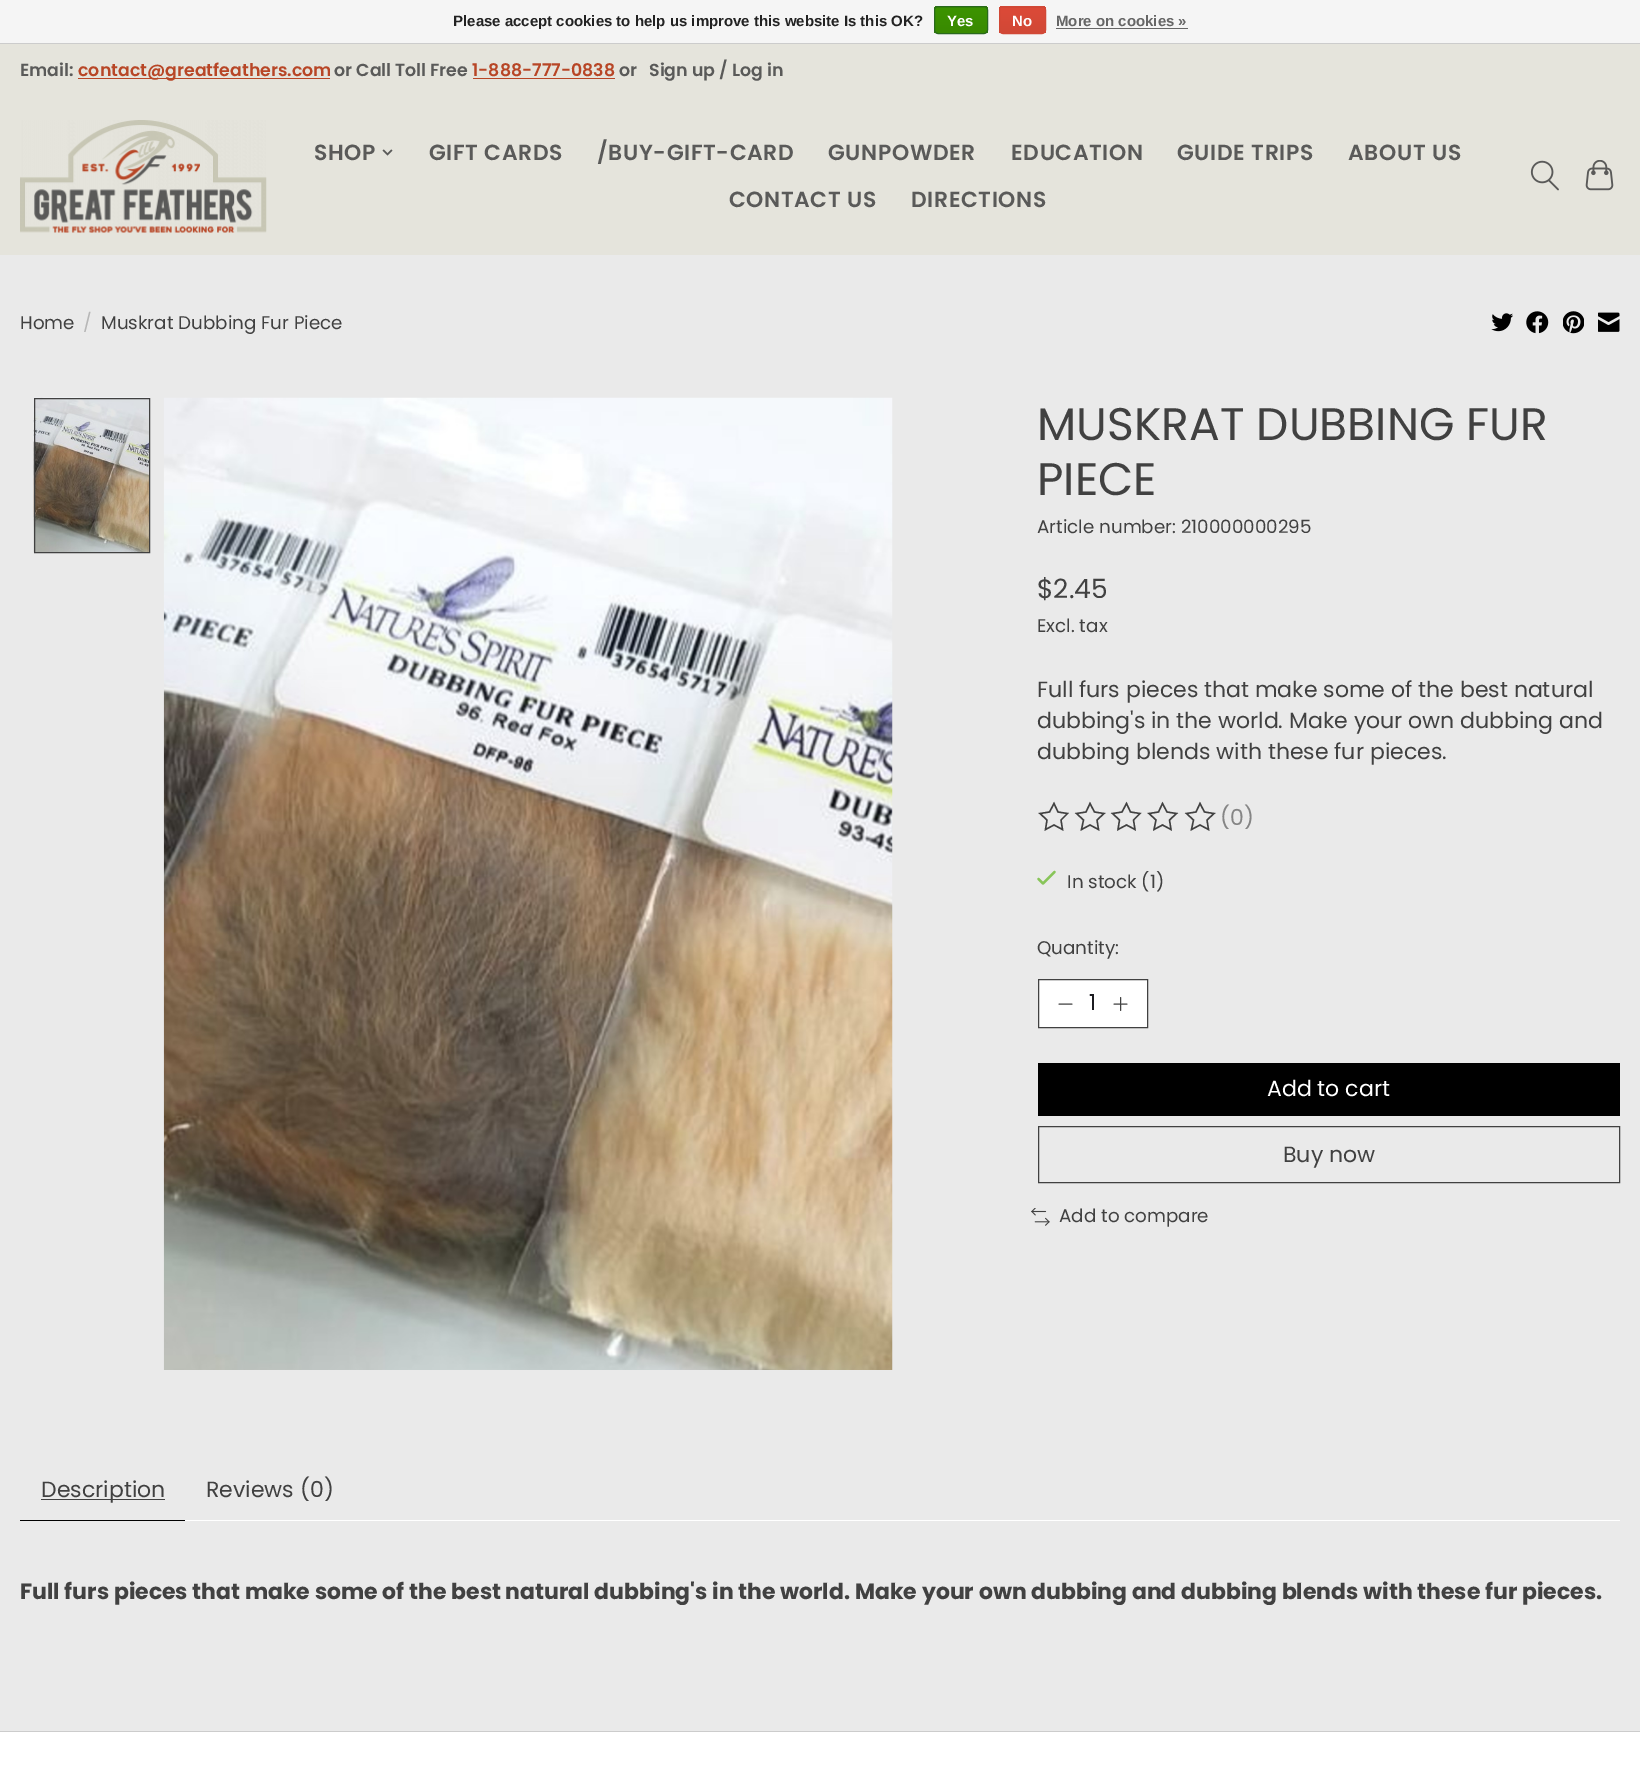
%!PS
<< /PageSize [1640 1768] >> setpagedevice
/m/moveto load def
/l/rlineto load def
/z/closepath load def
/f/fill load def
/s/stroke load def
/q/gsave load def
/Q_/grestore load def
/w/setlinewidth load def
/C { dup -16 bitshift 255 div exch dup -8 bitshift 255 and 255 div exch 255 and 255 div setrgbcolor } def
/F { [ exch dup neg 0 0 3 -1 roll 0 0 ] selectfont } def
/T { moveto show } def
/R { rectfill } def
/Q { 5 dict begin { /r /h /w /y /x } { exch def } forall
  x r add y moveto x w add y 2 copy h add r arct x w add y h add x 1 index r arct
  x y h add x y r arct x y 2 copy exch w add exch r arct closepath end } def
/I { 5 dict begin { /h /w /y /x /name } { exch def } forall
  gsave x y translate w h scale
  w h 8 [w 0 0 h 0 0] name (r) file false 3 colorimage grestore end } def
0 1768 translate 1 -1 scale
4 setmiterlimit
16#EAEAEA C
0 0 1640 1768 R
16#F5F5F5 C
0 0 1640 43 R
16#CCCCCC C
0 43 1640 1 R
/LiberationSans-Bold 15 F
16#222222 C
(Please accept cookies to help us improve this website Is this OK?) 453 26 T
q
934 6 54 28 4 Q clip newpath
q 934 6 m 54 0 l 0 2 l -54 0 l z clip newpath
<< /ShadingType 2 /ColorSpace /DeviceRGB /Coords [961 -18 961 7.5] /Extend [true true] /Function << /FunctionType 2 /Domain [0 1] /C0 [.235 .576 0] /C1 [.224 .541 0] /N 1 >> >> shfill Q_
q 934 8 m 54 0 l 0 25 l -54 0 l z clip newpath
<< /ShadingType 2 /ColorSpace /DeviceRGB /Coords [961 7.5 961 33] /Extend [true true] /Function << /FunctionType 2 /Domain [0 1] /C0 [.235 .576 0] /C1 [.224 .541 0] /N 1 >> >> shfill Q_
Q_
16#29691D C
934.5 6.5 53 27 3.5 Q s
16#FFFFFF C
(Yes) 947 26 T
q
999 6 47 28 4 Q clip newpath
q 999 6 m 47 0 l 0 2 l -47 0 l z clip newpath
<< /ShadingType 2 /ColorSpace /DeviceRGB /Coords [1023 -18 1023 7.5] /Extend [true true] /Function << /FunctionType 2 /Domain [0 1] /C0 [.863 .29 .22] /C1 [.82 .282 .212] /N 1 >> >> shfill Q_
q 999 8 m 47 0 l 0 25 l -47 0 l z clip newpath
<< /ShadingType 2 /ColorSpace /DeviceRGB /Coords [1023 7.5 1023 33] /Extend [true true] /Function << /FunctionType 2 /Domain [0 1] /C0 [.863 .29 .22] /C1 [.82 .282 .212] /N 1 >> >> shfill Q_
Q_
16#D14836 C
999.5 6.5 46 27 3.5 Q s
16#FFFFFF C
(No) 1012 26 T
16#666666 C
(More on cookies ») 1056 26 T
1056 28 132 1 R
16#E5E4DC C
0 44 1640 211 R
/Poppins-SemiBold 17.4 F
16#5A5A59 C
(Email:) 20 76 T
16#B84626 C
78 78 252 1 R
(contact@greatfeathers.com) 78 76 T
16#5A5A59 C
(or Call Toll Free) 334 76 T
16#B84626 C
(1-888-777-0838) 472 76 T
473 78 142 1 R
16#5A5A59 C
(or) 619 76 T
(Sign up / Log in) 649 76 T
(1.rgb) 20 120 247 113 I
/Poppins-SemiBold 21.9 F
314 160 m .6 0 (SHOP) ashow
(2.rgb) 382 149 11 7 I
429 160 m .6 0 (GIFT CARDS) ashow
597 160 m .6 0 (/BUY-GIFT-CARD) ashow
828 160 m .6 0 (GUNPOWDER) ashow
1011 160 m .6 0 (EDUCATION) ashow
1177 160 m .6 0 (GUIDE TRIPS) ashow
1348 160 m .6 0 (ABOUT US) ashow
729 207 m .6 0 (CONTACT US) ashow
911 207 m .6 0 (DIRECTIONS) ashow
(3.rgb) 1530 160 29 31 I
(4.rgb) 1585 160 29 31 I
/Poppins-Regular 18.3 F
16#414141 C
(Home) 20 329 T
16#B7B7B7 C
(/) 83 329 T
16#414141 C
(Muskrat Dubbing Fur Piece) 101 329 T
(5.rgb) 1491 313 22 19 I
(6.rgb) 1526 311 23 23 I
(7.rgb) 1563 311 21 23 I
(8.rgb) 1598 312 22 20 I
(9.rgb) 33 397 117 156 I
34.5 398.5 115 154 rectstroke
(10.rgb) 163 397 730 973 I
/Poppins-Regular 45.6 F
(MUSKRAT DUBBING FUR) 1037 440 T
(PIECE) 1037 495 T
/Poppins-Regular 18.3 F
(Article number: 210000000295) 1037 533 T
/Poppins-Regular 26.5 F
($2.45) 1037 598 T
/Poppins-Regular 18.3 F
(Excl. tax) 1037 632 T
/Poppins-Regular 22 F
(Full furs pieces that make some of the best natural) 1037 697 T
(dubbing's in the world. Make your own dubbing and) 1037 728 T
(dubbing blends with these fur pieces.) 1037 759 T
1.4 w
1054 803.5 m 4 8.5 l 9.5 1.5 l -6.5 6.5 l 1.5 9.5 l -8.5 -4.5 l -8.5 4.5 l 1.5 -9.5 l -7 -6.5 l 9.5 -1.5 l z s
1090 803.5 m 4.5 8.5 l 9.5 1.5 l -7 6.5 l 1.5 9.5 l -8.5 -4.5 l -8.5 4.5 l 2 -9.5 l -7 -6.5 l 9.5 -1.5 l z s
1126.5 803.5 m 4 8.5 l 9.5 1.5 l -6.5 6.5 l 1.5 9.5 l -8.5 -4.5 l -8.5 4.5 l 1.5 -9.5 l -7 -6.5 l 9.5 -1.5 l z s
1162.5 803.5 m 4.5 8.5 l 9.5 1.5 l -7 6.5 l 1.5 9.5 l -8.5 -4.5 l -8.5 4.5 l 2 -9.5 l -7 -6.5 l 9.5 -1.5 l z s
1200 803.5 m 4.5 8.5 l 9.5 1.5 l -7 6.5 l 1.5 9.5 l -8.5 -4.5 l -8.5 4.5 l 2 -9.5 l -7 -6.5 l 9.5 -1.5 l z s
16#858585 C
(\(0\)) 1220 825 T
16#88C559 C
2.3 w
1 setlinecap
1 setlinejoin
1038.5 879 m 4.5 4.5 l 11.5 -11.5 l s
/Poppins-Regular 18.3 F
16#414141 C
(In stock \(1\)) 1067 888 T
(Quantity:) 1037 954 T
16#FFFFFF C
1038.5 979.5 m 109 0 l 0 48 l -109 0 l z q f Q_
16#414141 C
1 w
0 setlinecap
0 setlinejoin
s
.9 w
1 setlinecap
1 setlinejoin
1059 1004 m 13 0 l s
/Poppins-Regular 22 F
16#1C1C21 C
(1) 1089 1010 T
16#414141 C
1120.5 997.5 m 0 13 l 1114 1004 m 13 0 l s
16#000000 C
1038 1063 582 53 R
16#FFFFFF C
(Add to cart) 1267 1096 T
16#414141 C
1 w
0 setlinecap
0 setlinejoin
1038.5 1126.5 581 56 rectstroke
(Buy now) 1283 1162 T
(11.rgb) 1031 1208 19 18 I
/Poppins-Regular 18.3 F
(Add to compare) 1059 1222 T
16#000000 C
20 1520 165 1 R
16#414141 C
41 1499 124 1 R
/Poppins-Regular 22 F
(Description) 41 1497 T
(Reviews \(0\)) 206 1497 T
16#FFFFFF C
185 1520 1435 1 R
/Poppins-Bold 22 F
16#414141 C
(Full furs pieces that make some of the best natural dubbing's in the world. Make your own dubbing and dubbing blends with these fur pieces.) 20 1599 T
16#FFFFFF C
0 1732 1640 36 R
16#CCCCCC C
0 1731 1640 1 R
showpage
